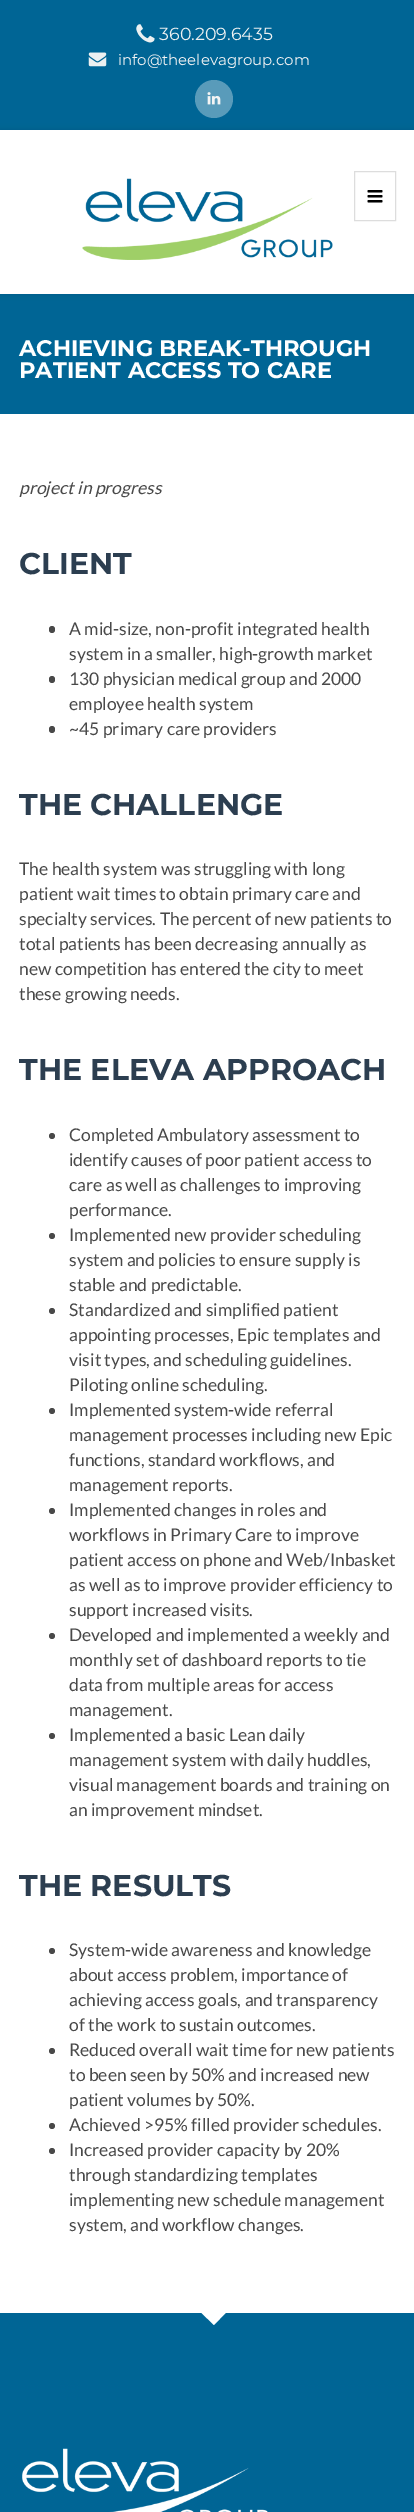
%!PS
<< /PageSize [414 2512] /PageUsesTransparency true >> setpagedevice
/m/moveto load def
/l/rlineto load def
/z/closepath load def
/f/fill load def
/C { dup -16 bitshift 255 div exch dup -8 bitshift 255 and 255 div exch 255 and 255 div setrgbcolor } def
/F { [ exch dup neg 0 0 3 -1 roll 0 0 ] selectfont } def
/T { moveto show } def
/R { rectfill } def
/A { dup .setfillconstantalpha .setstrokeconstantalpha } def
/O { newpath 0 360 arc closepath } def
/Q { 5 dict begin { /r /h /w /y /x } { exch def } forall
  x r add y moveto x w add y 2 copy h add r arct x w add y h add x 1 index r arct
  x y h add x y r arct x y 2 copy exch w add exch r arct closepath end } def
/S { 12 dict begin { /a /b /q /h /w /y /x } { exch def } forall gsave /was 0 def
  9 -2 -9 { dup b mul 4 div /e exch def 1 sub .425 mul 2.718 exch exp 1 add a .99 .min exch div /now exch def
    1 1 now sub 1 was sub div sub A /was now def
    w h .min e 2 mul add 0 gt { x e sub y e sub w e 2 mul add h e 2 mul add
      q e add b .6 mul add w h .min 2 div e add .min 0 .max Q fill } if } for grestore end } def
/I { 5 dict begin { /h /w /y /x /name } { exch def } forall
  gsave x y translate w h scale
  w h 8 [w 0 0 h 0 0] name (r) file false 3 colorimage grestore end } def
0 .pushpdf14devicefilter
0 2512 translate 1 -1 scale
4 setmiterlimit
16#FFFFFF C
0 0 414 2512 R
16#006595 C
0 0 414 130 R
(1.rgb) 136 24 19 19 I
/Montserrat-Regular 17.5 F
16#ECF0F1 C
(360.209.6435) 159 40 T
(2.rgb) 88 52 19 15 I
/Montserrat-Regular 15 F
16#F4F4F4 C
(info@theelevagroup.com) 118 65 T
16#599BBA C
214 99 19 O f
(3.rgb) 207 92 14 13 I
16#006595 C
0 294 414 120 R
16#000000 C
0 130 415 164 0 3 .1 S
16#FFFFFF C
0 130 414 164 R
(4.rgb) 82 178 251 82 I
16#DDDDDD C
354.5 171.5 41 49 rectstroke
(5.rgb) 367 190 16 13 I
/Montserrat-Bold 22.5 F
16#FFFFFF C
(ACHIEVING BREAK-THROUGH) 19 356 T
(PATIENT ACCESS TO CARE) 19 378 T
/Lato-Italic 17.5 F
16#494949 C
(project in progress) 19 494 T
/Montserrat-Bold 30 F
16#2C3E50 C
(CLIENT) 19 574 T
16#494949 C
49 626 6 7 3 Q f
/Lato-Regular 17.5 F
(A mid-size, non-profit integrated health) 69 635 T
(system in a smaller, high-growth market) 69 660 T
49 676 6 7 3 Q f
(130 physician medical group and 2000) 69 685 T
(employee health system) 69 710 T
49 726 6 7 3 Q f
(~45 primary care providers) 69 735 T
/Montserrat-Bold 30 F
16#2C3E50 C
(THE CHALLENGE) 19 815 T
/Lato-Regular 17.5 F
16#494949 C
(The health system was struggling with long) 19 875 T
(patient wait times to obtain primary care and) 19 900 T
(specialty services. The percent of new patients to) 19 925 T
(total patients has been decreasing annually as) 19 950 T
(new competition has entered the city to meet) 19 975 T
(these growing needs.) 19 1000 T
/Montserrat-Bold 30 F
16#2C3E50 C
(THE ELEVA APPROACH) 19 1080 T
16#494949 C
52 1136 3 O f
/Lato-Regular 17.5 F
(Completed Ambulatory assessment to) 69 1141 T
(identify causes of poor patient access to) 69 1166 T
(care as well as challenges to improving) 69 1191 T
(performance.) 69 1216 T
52 1236 3 O f
(Implemented new provider scheduling) 69 1241 T
(system and policies to ensure supply is) 69 1266 T
(stable and predictable.) 69 1291 T
52 1311 3 O f
(Standardized and simplified patient) 69 1316 T
(appointing processes, Epic templates and) 69 1341 T
(visit types, and scheduling guidelines.) 69 1366 T
(Piloting online scheduling.) 69 1391 T
52 1411 3 O f
(Implemented system-wide referral) 69 1416 T
(management processes including new Epic) 69 1441 T
(functions, standard workflows, and) 69 1466 T
(management reports.) 69 1491 T
52 1511 3 O f
(Implemented changes in roles and) 69 1516 T
(workflows in Primary Care to improve) 69 1541 T
(patient access on phone and Web/Inbasket) 69 1566 T
(as well as to improve provider efficiency to) 69 1591 T
(support increased visits.) 69 1616 T
52 1636 3 O f
(Developed and implemented a weekly and) 69 1641 T
(monthly set of dashboard reports to tie) 69 1666 T
(data from multiple areas for access) 69 1691 T
(management.) 69 1716 T
52 1736 3 O f
(Implemented a basic Lean daily) 69 1741 T
(management system with daily huddles,) 69 1766 T
(visual management boards and training on) 69 1791 T
(an improvement mindset.) 69 1816 T
/Montserrat-Bold 30 F
16#2C3E50 C
(THE RESULTS) 19 1896 T
16#494949 C
52 1951 3 O f
/Lato-Regular 17.5 F
(System-wide awareness and knowledge) 69 1956 T
(about access problem, importance of) 69 1981 T
(achieving access goals, and transparency) 69 2006 T
(of the work to sustain outcomes.) 69 2031 T
52 2051 3 O f
(Reduced overall wait time for new patients) 69 2056 T
(to been seen by 50% and increased new) 69 2081 T
(patient volumes by 50%.) 69 2106 T
52 2126 3 O f
(Achieved >95% filled provider schedules.) 69 2131 T
52 2151 3 O f
(Increased provider capacity by 20%) 69 2156 T
(through standardizing templates) 69 2181 T
(implementing new schedule management) 69 2206 T
(system, and workflow changes.) 69 2231 T
16#006595 C
0 2313 414 199 R
16#FFFFFF C
201 2312.5 m 25 0 l -12 12.5 l z f
(6.rgb) 22 2448 246 64 I
.poppdf14devicefilter showpage
